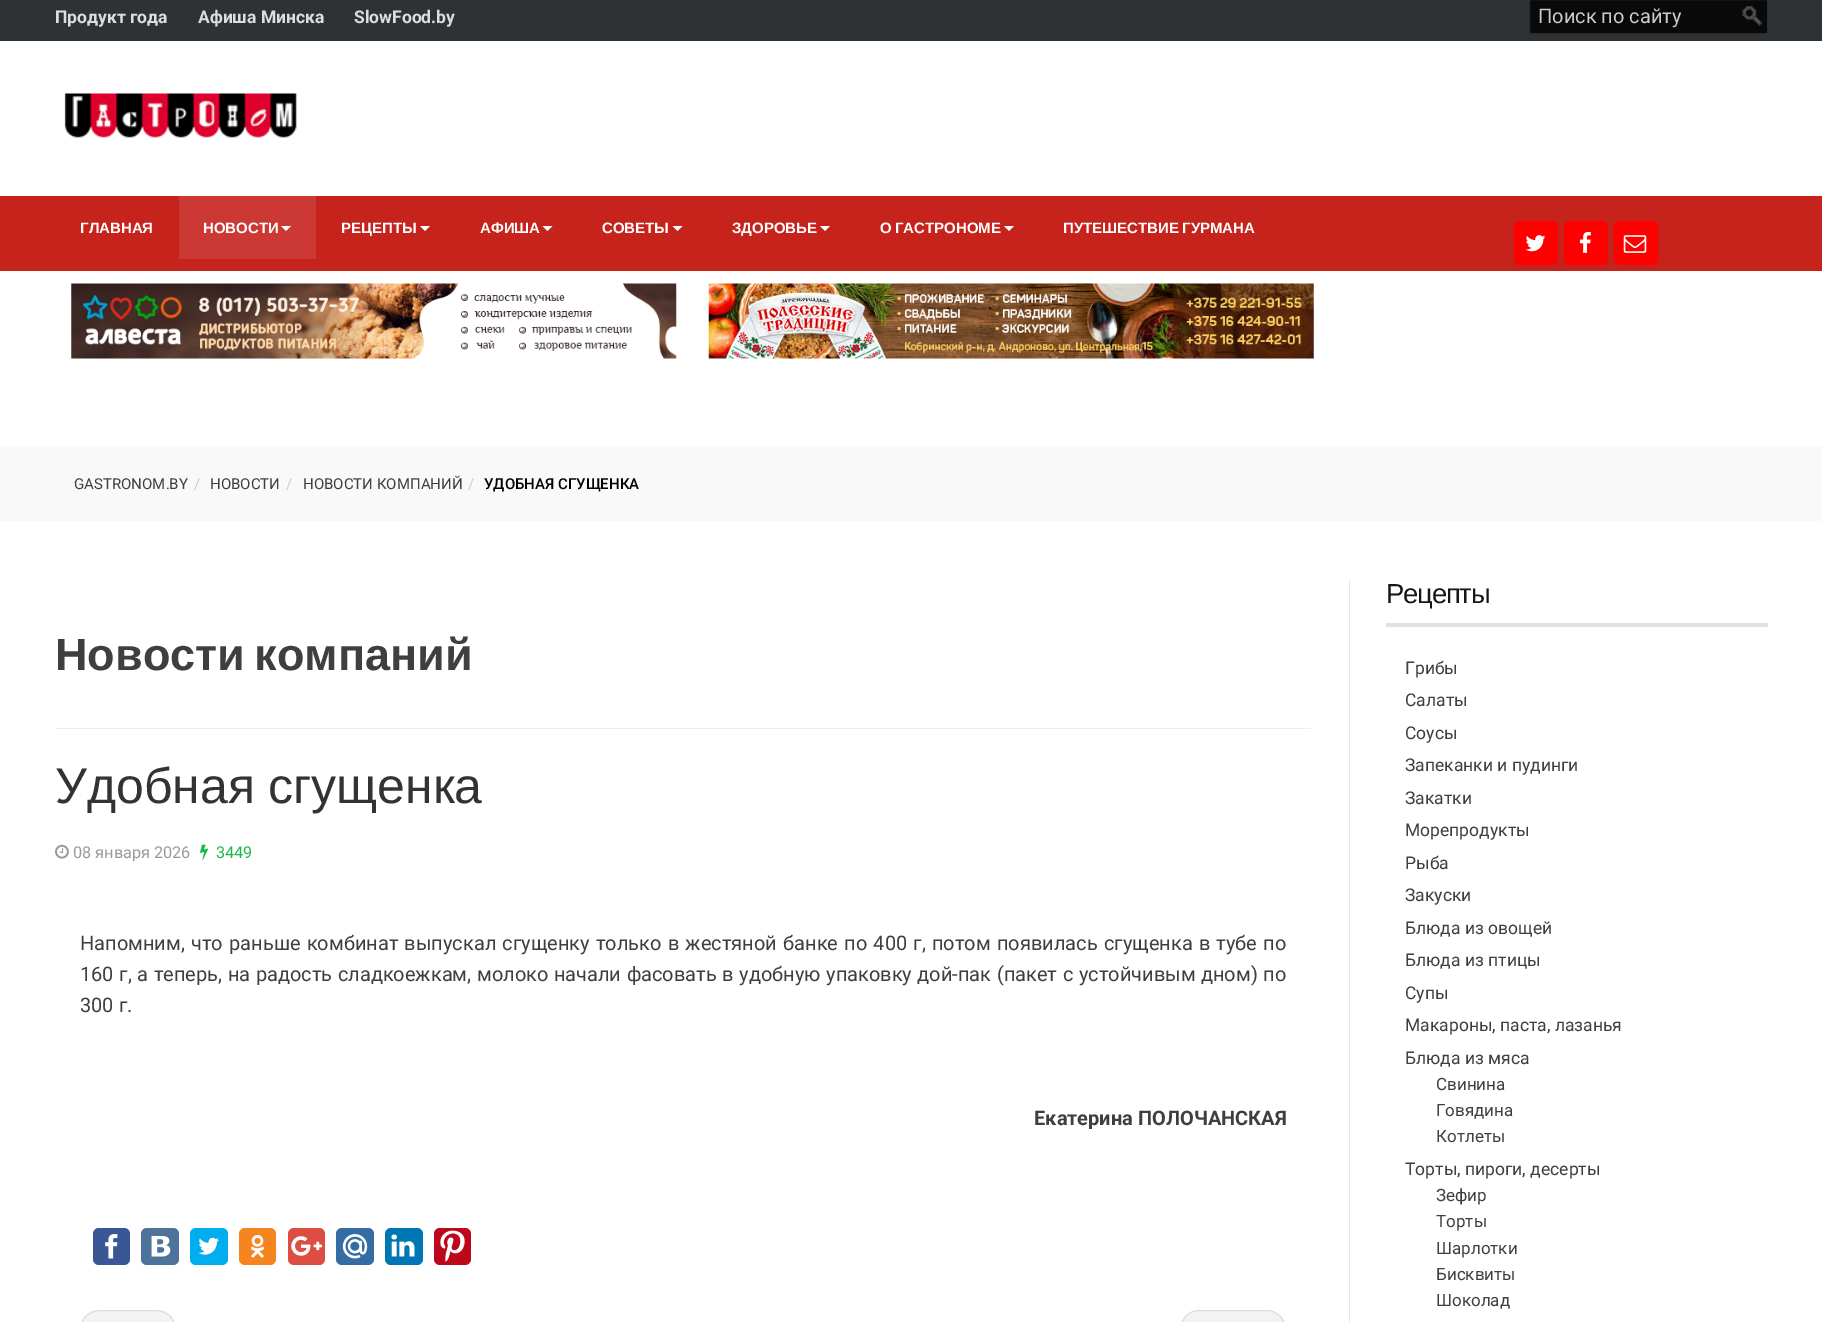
%!PS
<< /PageSize [1822 1322] >> setpagedevice
/m/moveto load def
/l/rlineto load def
/z/closepath load def
/f/fill load def
/s/stroke load def
/q/gsave load def
/Q_/grestore load def
/C { dup -16 bitshift 255 div exch dup -8 bitshift 255 and 255 div exch 255 and 255 div setrgbcolor } def
/F { [ exch dup neg 0 0 3 -1 roll 0 0 ] selectfont } def
/T { moveto show } def
/R { rectfill } def
/Q { 5 dict begin { /r /h /w /y /x } { exch def } forall
  x r add y moveto x w add y 2 copy h add r arct x w add y h add x 1 index r arct
  x y h add x y r arct x y 2 copy exch w add exch r arct closepath end } def
/I { 5 dict begin { /h /w /y /x /name } { exch def } forall
  gsave x y translate w h scale
  w h 8 [w 0 0 h 0 0] name (r) file false 3 colorimage grestore end } def
0 1322 translate 1 -1 scale
4 setmiterlimit
16#FFFFFF C
0 0 1822 1322 R
16#2E3235 C
0 0 1822 41 R
/Roboto-Bold 17.5 F
16#DDDDDD C
(Продукт года) 55 23 T
(Афиша Минска) 198 23 T
(SlowFood.by) 354 23 T
16#090909 C
1530 0 237 33 R
(1.rgb) 1742 6 21 20 I
16#2C2C2C C
1529.5 -.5 238 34 rectstroke
/Roboto-Regular 20 F
16#CCCCCC C
(Поиск по сайту) 1538 23 T
(2.rgb) 64 93 233 45 I
16#C6231D C
0 196 1822 75 R
/LiberationSans-Bold 15 F
16#FFFFFF C
(ГЛАВНАЯ) 80 233 T
16#CC3934 C
179 196 137 63 R
16#FFFFFF C
(НОВОСТИ) 203 233 T
281 226 m 10 0 l -5 5 l z f
(РЕЦЕПТЫ) 341 233 T
420 226 m 10 0 l -5 5 l z f
(АФИША) 480 233 T
542.5 226 m 10 0 l -5 5 l z f
(СОВЕТЫ) 602 233 T
672.5 226 m 10 0 l -5 5 l z f
(ЗДОРОВЬЕ) 732 233 T
820 226 m 10 0 l -5 5 l z f
880 233 m -1 0 32 (О ГАСТРОНОМЕ) widthshow
1004 226 m 10 0 l -5 5 l z f
1063 233 m -1 0 32 (ПУТЕШЕСТВИЕ ГУРМАНА) widthshow
16#FF0000 C
1514 221 44 44 6 Q f
(3.rgb) 1525 235 21 17 I
1564 221 44 44 6 Q f
(4.rgb) 1579 232 12 21 I
1614 221 44 44 6 Q f
(5.rgb) 1623 235 24 18 I
(6.rgb) 71 283 606 76 I
(7.rgb) 708 283 606 76 I
16#F9F9FA C
0 446 1822 75 R
/Roboto-Regular 15 F
16#3F3F3F C
(GASTRONOM.BY) 74 489 T
16#CCCCCC C
(/) 194 489 T
16#3F3F3F C
(НОВОСТИ) 210 489 T
16#CCCCCC C
(/) 286 489 T
16#3F3F3F C
(НОВОСТИ КОМПАНИЙ) 303 489 T
16#CCCCCC C
(/) 468 489 T
/Roboto-Medium 15 F
16#000000 C
(УДОБНАЯ СГУЩЕНКА) 484 489 T
16#EEEEEE C
55 728 1256 1 R
/LiberationSans-Bold 45 F
16#3F3F3F C
55 670 m -3 0 32 (Новости компаний) widthshow
/LiberationSans-Regular 50 F
16#333333 C
55 803 m -1 0 32 (Удобная сгущенка) widthshow
(8.rgb) 55 844 14 15 I
/Roboto-Regular 16.25 F
16#999999 C
(08 января 2026) 73 858 T
(9.rgb) 200 844 8 16 I
16#1EB848 C
(3449) 216 858 T
/Roboto-Regular 20 F
16#3F3F3F C
80 950 m 1.25 0 32 (Напомним, что раньше комбинат выпускал сгущенку только в жестяной банке по 400 г, потом появилась сгущенка в тубе по) widthshow
80 981 m .6 0 32 (160 г, а теперь, на радость сладкоежкам, молоко начали фасовать в удобную упаковку дой-пак \(пакет с устойчивым дном\) по) widthshow
(300 г.) 80 1012 T
/Roboto-Bold 20 F
(Екатерина ПОЛОЧАНСКАЯ) 1034 1125 T
16#3A5795 C
93 1228 37 37 6 Q f
(10.rgb) 105 1234 13 25 I
16#4E7299 C
141 1228 38 37 6 Q f
(11.rgb) 151 1235 20 22 I
16#00AEEF C
190 1228 38 37 6 Q f
(12.rgb) 198 1237 21 18 I
16#F6851F C
239 1228 37 37 6 Q f
(13.rgb) 250 1234 15 24 I
16#DC4E41 C
288 1228 37 37 6 Q f
(14.rgb) 291 1236 31 20 I
16#356CA4 C
336 1228 38 37 6 Q f
(15.rgb) 342 1234 26 25 I
16#0077B5 C
385 1228 38 37 6 Q f
(16.rgb) 391 1234 24 23 I
16#BD081C C
434 1228 37 37 6 Q f
(17.rgb) 440 1230 25 32 I
16#F3F3F3 C
80.5 1310.5 95 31 18.5 Q q f Q_
16#DDDDDD C
s
16#F3F3F3 C
1180.5 1310.5 105 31 18.5 Q q f Q_
16#DDDDDD C
s
16#E8E6E7 C
1349 580 1 742 R
16#E1E1E1 C
1386 623 382 4 R
/LiberationSans-Regular 27.5 F
16#161616 C
1386 603 m -1.25 0 (Рецепты) ashow
/Roboto-Regular 17.5 F
16#3F3F3F C
(Грибы) 1405 674 T
(Салаты) 1405 706 T
(Соусы) 1405 739 T
(Запеканки и пудинги) 1405 771 T
(Закатки) 1405 804 T
(Морепродукты) 1405 836 T
(Рыба) 1405 869 T
(Закуски) 1405 901 T
(Блюда из овощей) 1405 934 T
(Блюда из птицы) 1405 966 T
(Супы) 1405 999 T
(Макароны, паста, лазанья) 1405 1031 T
(Блюда из мяса) 1405 1064 T
/Roboto-Regular 17 F
(Свинина) 1436 1090 T
(Говядина) 1436 1116 T
(Котлеты) 1436 1142 T
/Roboto-Regular 17.5 F
(Торты, пироги, десерты) 1405 1175 T
/Roboto-Regular 17 F
(Зефир) 1436 1201 T
(Торты) 1436 1227 T
(Шарлотки) 1436 1254 T
(Бисквиты) 1436 1280 T
(Шоколад) 1436 1306 T
showpage
